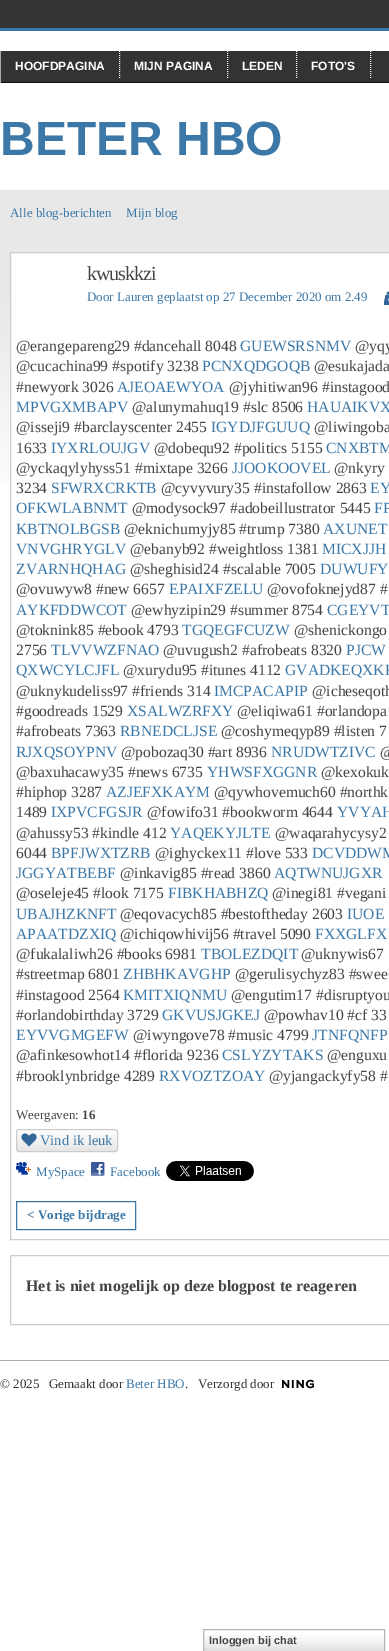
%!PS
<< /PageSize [389 1651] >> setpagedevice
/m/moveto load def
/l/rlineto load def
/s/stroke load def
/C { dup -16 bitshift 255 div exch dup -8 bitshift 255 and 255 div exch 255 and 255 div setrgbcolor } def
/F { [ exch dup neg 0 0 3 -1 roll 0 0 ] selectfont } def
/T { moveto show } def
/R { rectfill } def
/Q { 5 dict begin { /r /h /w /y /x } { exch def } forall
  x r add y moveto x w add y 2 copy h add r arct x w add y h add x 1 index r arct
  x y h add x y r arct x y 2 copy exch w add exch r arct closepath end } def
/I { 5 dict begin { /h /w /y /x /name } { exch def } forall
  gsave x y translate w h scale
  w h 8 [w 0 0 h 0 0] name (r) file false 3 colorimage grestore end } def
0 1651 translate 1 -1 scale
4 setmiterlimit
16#FFFFFF C
0 0 389 1651 R
16#333333 C
0 0 389 28 R
16#3C78A7 C
0 28 389 3 R
16#333333 C
1 51 388 31 R
16#111111 C
0 82 389 1 R
16#AAAAAA C
0 51 1 32 R
16#FFFFFF C
[1 1] 0 setdash
119.5 47 m 0 31 l s
/LiberationSans-Bold 12 F
(HOOFDPAGINA) 15 70 T
227.5 47 m 0 31 l s
(MIJN PAGINA) 134 70 T
296.5 47 m 0 31 l s
(LEDEN) 242 70 T
370.5 47 m 0 31 l s
(FOTO'S) 311 70 T
/LiberationSans-Bold 48 F
16#3C78A7 C
(BETER HBO) 0 155 T
(1.rgb) 0 190 389 292 I
/LiberationSerif-Regular 13 F
(Alle blog-berichten) 10 217 T
(Mijn blog) 126 217 T
16#FFFFFF C
11 253 378 229 R
16#CCCCCC C
[] 0 setdash
10.5 252.5 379 987 rectstroke
/LiberationSerif-Regular 20 F
16#454545 C
87 280 m -1 0 (kwuskkzi) ashow
/LiberationSerif-Regular 13 F
16#3C78A7 C
(Door Lauren geplaatst op 27 December 2020 om 2.49) 87 301 T
(2.rgb) 384 291 5 14 I
/LiberationSerif-Regular 15.6 F
16#454545 C
(@erangepareng29 #dancehall 8048) 16 351 T
16#3C78A7 C
(GUEWSRSNMV) 240 351 T
16#454545 C
(@yqy) 355 351 T
(@cucachina99 #spotify 3238) 16 371 T
16#3C78A7 C
(PCNXQDGOQB) 202 371 T
16#454545 C
(@esukajada) 314 371 T
(#newyork 3026) 16 392 T
16#3C78A7 C
(AJEOAEWYOA) 117 392 T
16#454545 C
(@jyhitiwan96 #instagood) 229 392 T
16#3C78A7 C
(MPVGXMBAPV) 16 412 T
16#454545 C
(@alunymahuq19 #slc 8506) 132 412 T
16#3C78A7 C
(HAUAIKVX) 307 412 T
16#454545 C
(@isseji9 #barclayscenter 2455) 16 432 T
16#3C78A7 C
(IGYDJFGUUQ) 211 432 T
16#454545 C
(@liwingoba) 314 432 T
(1633) 16 453 T
16#3C78A7 C
(IYXRLOUJGV) 51 453 T
16#454545 C
(@dobequ92 #politics 5155) 154 453 T
16#3C78A7 C
(CNXBTM) 326 453 T
16#454545 C
(@yckaqylyhyss51 #mixtape 3266) 16 473 T
16#3C78A7 C
(JJOOKOOVEL) 232 473 T
16#454545 C
(@nkyry) 334 473 T
(3234) 16 493 T
16#3C78A7 C
(SFWRXCRKTB) 51 493 T
16#454545 C
(@cyvyvury35 #instafollow 2863) 161 493 T
16#3C78A7 C
(EY) 370 493 T
(OFKWLABNMT) 16 513 T
16#454545 C
(@modysock97 #adobeillustrator 5445) 132 513 T
16#3C78A7 C
(FP) 374 513 T
(KBTNOLBGSB) 16 534 T
16#454545 C
(@eknichumyjy85 #trump 7380) 124 534 T
16#3C78A7 C
(AXUNET) 323 534 T
(VNVGHRYGLV) 16 554 T
16#454545 C
(@ebanyb92 #weightloss 1381) 130 554 T
16#3C78A7 C
(MICXJJH) 322 554 T
(ZVARNHQHAG) 16 574 T
16#454545 C
(@sheghisid24 #scalable 7005) 130 574 T
16#3C78A7 C
(DUWUFY) 320 574 T
16#454545 C
(@ovuwyw8 #new 6657) 16 594 T
16#3C78A7 C
(EPAIXFZELU) 169 594 T
16#454545 C
(@ovofoknejyd87 #) 267 594 T
16#3C78A7 C
(AYKFDDWCOT) 16 615 T
16#454545 C
(@ewhyzipin29 #summer 8754) 131 615 T
16#3C78A7 C
(CGEYVT) 327 615 T
16#454545 C
(@toknink85 #ebook 4793) 16 635 T
16#3C78A7 C
(TGQEGFCUZW) 182 635 T
16#454545 C
(@shenickongo) 294 635 T
(2756) 16 655 T
16#3C78A7 C
(TLVVWZFNAO) 51 655 T
16#454545 C
(@uvugush2 #afrobeats 8320) 163 655 T
16#3C78A7 C
(PJCW) 346 655 T
(QXWCYLCJFL) 16 675 T
16#454545 C
(@xurydu95 #itunes 4112) 123 675 T
16#3C78A7 C
(GVADKEQXKF) 285 675 T
16#454545 C
(@uknykudeliss97 #friends 314) 16 696 T
16#3C78A7 C
(IMCPACAPIP) 214 696 T
16#454545 C
(@icheseqoth) 312 696 T
(#goodreads 1529) 16 716 T
16#3C78A7 C
(XSALWZRFXY) 127 716 T
16#454545 C
(@eliqiwa61 #orlandopa) 237 716 T
(#afrobeats 7363) 16 736 T
16#3C78A7 C
(RBNEDCLJSE) 120 736 T
16#454545 C
(@coshymeqyp89 #listen 7) 221 736 T
16#3C78A7 C
(RJXQSOYPNV) 16 757 T
16#454545 C
(@pobozaq30 #art 8936) 121 757 T
16#3C78A7 C
(NRUDWTZIVC) 271 757 T
16#454545 C
(@) 380 757 T
(@baxuhacawy35 #news 6735) 16 777 T
16#3C78A7 C
(YHWSFXGGNR) 207 777 T
16#454545 C
(@kexokuk) 321 777 T
(#hiphop 3287) 16 797 T
16#3C78A7 C
(AZJEFXKAYM) 106 797 T
16#454545 C
(@qywhovemuch60 #northk) 214 797 T
(1489) 16 817 T
16#3C78A7 C
(IXPVCFGSJR) 51 817 T
16#454545 C
(@fowifo31 #bookworm 4644) 147 817 T
16#3C78A7 C
(YVYAH) 337 817 T
16#454545 C
(@ahussy53 #kindle 412) 16 838 T
16#3C78A7 C
(YAQEKYJLTE) 170 838 T
16#454545 C
(@waqarahycysy2) 275 838 T
(6044) 16 858 T
16#3C78A7 C
(BPFJWXTZRB) 51 858 T
16#454545 C
(@ighyckex11 #love 533) 155 858 T
16#3C78A7 C
(DCVDDWM) 312 858 T
(JGGYATBEBF) 16 878 T
16#454545 C
(@inkavig85 #read 3860) 120 878 T
16#3C78A7 C
(AQTWNUJGXR) 274 878 T
16#454545 C
(@oseleje45 #look 7175) 16 898 T
16#3C78A7 C
(FIBKHABHZQ) 168 898 T
16#454545 C
(@inegi81 #vegani) 272 898 T
16#3C78A7 C
(UBAJHZKNFT) 16 919 T
16#454545 C
(@eqovacych85 #bestoftheday 2603) 120 919 T
16#3C78A7 C
(IUOE) 347 919 T
(APAATDZXIQ) 16 939 T
16#454545 C
(@ichiqowhivij56 #travel 5090) 120 939 T
16#3C78A7 C
(FXXGLFX) 315 939 T
16#454545 C
(@fukalaliwh26 #books 6981) 16 959 T
16#3C78A7 C
(TBOLEZDQIT) 201 959 T
16#454545 C
(@uknywis67) 301 959 T
(#streetmap 6801) 16 979 T
16#3C78A7 C
(ZHBHKAVGHP) 123 979 T
16#454545 C
(@gerulisychyz83 #swee) 235 979 T
(#instagood 2564) 16 1000 T
16#3C78A7 C
(KMITXIQNMU) 123 1000 T
16#454545 C
(@engutim17 #disruptyou) 231 1000 T
(#orlandobirthday 3729) 16 1020 T
16#3C78A7 C
(GKVUSJGKEJ) 162 1020 T
16#454545 C
(@powhav10 #cf 33) 264 1020 T
16#3C78A7 C
(EYVVGMGEFW) 16 1040 T
16#454545 C
(@iwyngove78 #music 4799) 133 1040 T
16#3C78A7 C
(JTNFQNFP) 312 1040 T
16#454545 C
(@afinkesowhot14 #florida 9236) 16 1060 T
16#3C78A7 C
(CSLYZYTAKS) 222 1060 T
16#454545 C
(@enguxu) 327 1060 T
(#brooklynbridge 4289) 16 1081 T
16#3C78A7 C
(RXVOZTZOAY) 159 1081 T
16#454545 C
(@yjangackyfy58 #) 269 1081 T
/LiberationSerif-Regular 13 F
(Weergaven:) 16 1119 T
/LiberationSerif-Bold 13 F
(16) 82 1119 T
(3.rgb) 16 1132 102 20 I
16#CBCBCB C
16.5 1129.5 101 22 2.5 Q s
(4.rgb) 21 1133 16 14 I
/LiberationSerif-Regular 14.5 F
16#3C78A7 C
(Vind ik leuk) 40 1145 T
(5.rgb) 16 1162 15 13 I
/LiberationSerif-Regular 13 F
(MySpace) 36 1176 T
(6.rgb) 91 1162 14 14 I
(Facebook) 110 1176 T
(7.rgb) 166 1161 88 20 I
16.5 1201.5 119 28 rectstroke
/LiberationSerif-Bold 13 F
(< Vorige bijdrage) 27 1219 T
16#CCCCCC C
10.5 1255.5 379 69 rectstroke
/LiberationSerif-Bold 16 F
16#454545 C
(Het is niet mogelijk op deze blogpost te reageren) 26 1291 T
16#AAAAAA C
0 1360 389 1 R
/LiberationSerif-Regular 13 F
16#333333 C
(© 2025) 0 1388 T
(Gemaakt door) 49 1388 T
16#3C78A7 C
(Beter HBO) 126 1388 T
16#333333 C
(.) 185 1388 T
(Verzorgd door) 198 1388 T
(8.rgb) 282 1379 32 10 I
(9.rgb) 204 1635 180 16 I
16#B7B7B7 C
203.5 1629.5 181 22 rectstroke
/LiberationSans-Bold 11 F
16#454545 C
(Inloggen bij chat) 209 1644 T
showpage
